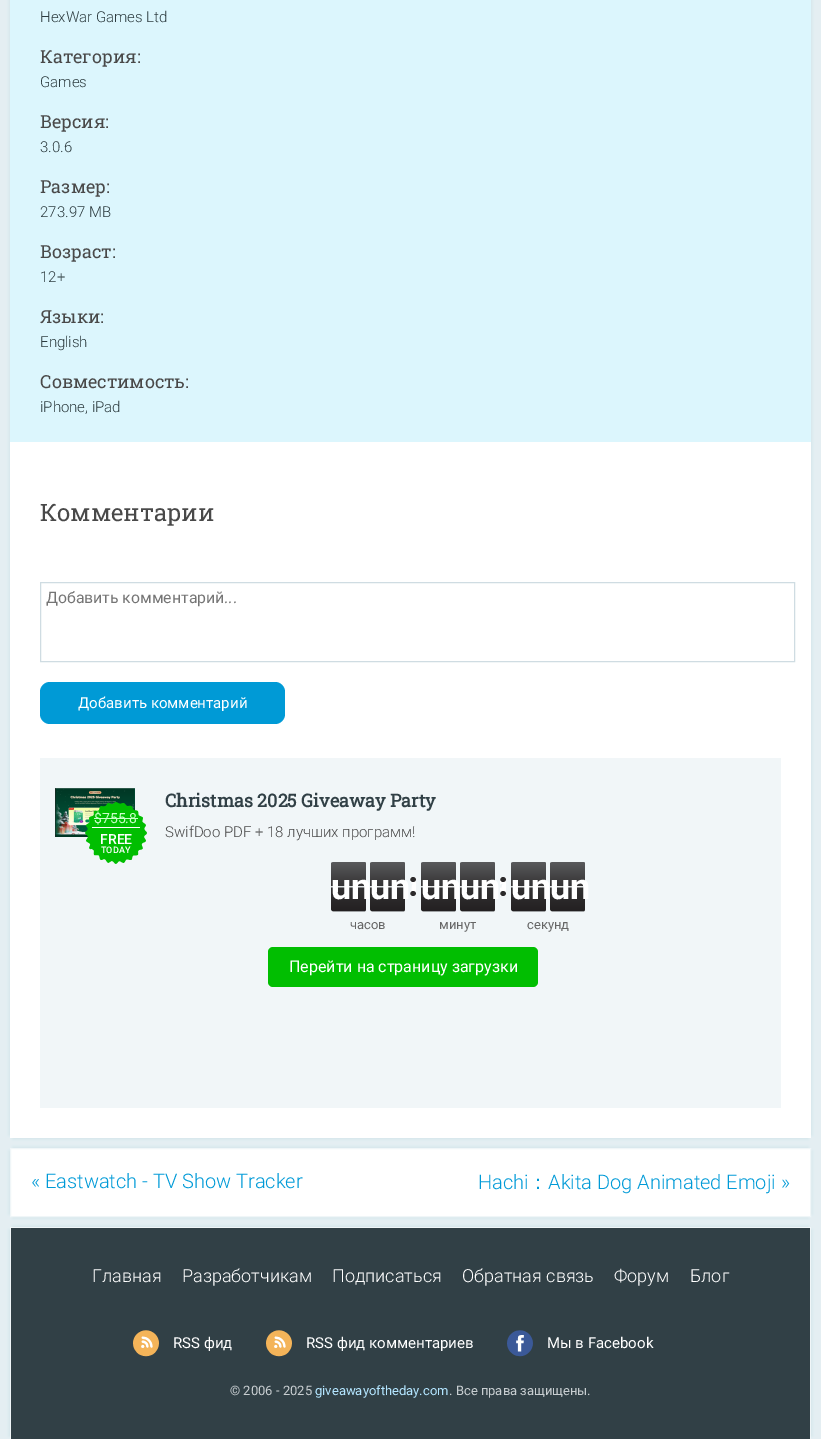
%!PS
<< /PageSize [821 1439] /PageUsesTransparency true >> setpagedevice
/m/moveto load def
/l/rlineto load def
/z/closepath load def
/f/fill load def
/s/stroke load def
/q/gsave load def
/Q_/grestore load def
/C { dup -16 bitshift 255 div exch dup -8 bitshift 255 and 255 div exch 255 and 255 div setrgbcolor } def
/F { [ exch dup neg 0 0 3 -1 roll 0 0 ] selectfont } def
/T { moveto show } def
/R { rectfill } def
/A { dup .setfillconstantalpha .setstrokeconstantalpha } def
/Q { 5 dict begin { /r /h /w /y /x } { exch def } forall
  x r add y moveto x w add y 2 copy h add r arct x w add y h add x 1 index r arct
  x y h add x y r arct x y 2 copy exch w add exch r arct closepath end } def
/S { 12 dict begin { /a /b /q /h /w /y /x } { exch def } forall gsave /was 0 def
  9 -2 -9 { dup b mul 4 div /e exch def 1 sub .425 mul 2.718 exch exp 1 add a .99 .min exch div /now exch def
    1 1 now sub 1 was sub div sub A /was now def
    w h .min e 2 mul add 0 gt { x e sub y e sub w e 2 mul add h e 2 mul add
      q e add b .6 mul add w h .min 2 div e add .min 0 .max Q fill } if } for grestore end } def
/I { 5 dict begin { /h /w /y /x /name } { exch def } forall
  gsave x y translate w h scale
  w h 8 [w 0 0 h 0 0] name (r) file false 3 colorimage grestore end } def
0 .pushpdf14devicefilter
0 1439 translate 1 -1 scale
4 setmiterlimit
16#E4EEF2 C
0 0 821 1439 R
16#C7DEE4 C
9 -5 795 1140 0 1.5 .6 S
13 -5 795 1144 0 1.5 .6 S
17 -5 795 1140 0 1.5 .6 S
16#FFFFFF C
10 442 801 696 R
16#DCF6FD C
10 0 801 442 R
/Roboto-Light 15 F
16#2D3C40 C
(HexWar Games Ltd) 40 22 T
/RobotoSlab-Regular 18 F
16#494949 C
(Категория:) 40 63 T
/Roboto-Light 15 F
16#2D3C40 C
(Games) 40 87 T
/RobotoSlab-Regular 18 F
16#494949 C
(Версия:) 40 128 T
/Roboto-Light 15 F
16#2D3C40 C
(3.0.6) 40 152 T
/RobotoSlab-Regular 18 F
16#494949 C
(Размер:) 40 193 T
/Roboto-Light 15 F
16#2D3C40 C
(273.97 MB) 40 217 T
/RobotoSlab-Regular 18 F
16#494949 C
(Возраст:) 40 258 T
/Roboto-Light 15 F
16#2D3C40 C
(12+) 40 282 T
/RobotoSlab-Regular 18 F
16#494949 C
(Языки:) 40 323 T
/Roboto-Light 15 F
16#2D3C40 C
(English) 40 347 T
/RobotoSlab-Regular 18 F
16#494949 C
(Совместимость:) 40 388 T
/Roboto-Light 15 F
16#2D3C40 C
(iPhone, iPad) 40 412 T
/RobotoSlab-Regular 24 F
16#494949 C
(Комментарии) 40 521 T
16#CFDCE2 C
40.5 582.5 754 79 rectstroke
/Roboto-Regular 15.8 F
16#757575 C
(Добавить комментарий...) 46 603 T
16#009AD6 C
40 682 245 42 10 Q f
/Roboto-Regular 15 F
16#FFFFFF C
(Добавить комментарий) 78 708 T
16#F1F6F8 C
40 758 741 350 R
(1.rgb) 55 788 80 49 I
(2.rgb) 85 802 62 62 I
/Roboto-Regular 14 F
16#C8FFC8 C
($755.8) 94 823 T
94 818 44 1 R
16#FFFFFF C
92 827 48 1 R
/Roboto-Medium 14 F
(FREE) 100 844 T
/Roboto-Medium 9 F
(TODAY) 101 853 T
/RobotoSlab-Bold 18 F
16#314046 C
(Christmas 2025 Giveaway Party) 165 807 T
/Roboto-Light 15 F
16#494949 C
(SwifDoo PDF + 18 лучших программ!) 165 837 T
(3.rgb) 331 862 35 50 I
/Roboto-Bold 36 F
16#FFFFFF C
(un) 331 899 T
(4.rgb) 370 862 35 50 I
(un) 370 899 T
/Roboto-Regular 13 F
16#666666 C
(часов) 350 929 T
(5.rgb) 410 877 6 19 I
(6.rgb) 421 862 35 50 I
/Roboto-Bold 36 F
16#FFFFFF C
(un) 421 899 T
(7.rgb) 460 862 35 50 I
(un) 460 899 T
/Roboto-Regular 13 F
16#666666 C
(минут) 439 929 T
(8.rgb) 500 877 6 19 I
(9.rgb) 511 862 35 50 I
/Roboto-Bold 36 F
16#FFFFFF C
(un) 511 899 T
(7.rgb) 550 862 35 50 I
(un) 550 899 T
/Roboto-Regular 13 F
16#666666 C
(секунд) 527 929 T
16#01BE01 C
268 947 270 40 5 Q f
/Roboto-Regular 16 F
16#FFFFFF C
(Перейти на страницу загрузки) 289 972 T
16#C7DEE4 C
9 1151 795 63 0 1.5 .6 S
13 1155 795 63 0 1.5 .6 S
17 1151 795 63 0 1.5 .6 S
13 1147 795 63 0 1.5 .6 S
16#FFFFFF C
10.5 1148.5 m 800 0 l 0 68 l -800 0 l z q f Q_
16#F0F6F8 C
s
/Roboto-Light 20 F
16#009AD7 C
(« Eastwatch - TV Show Tracker) 31 1188 T
(Hachi) 478 1189 T
/WenQuanYiZenHei-Medium 20 F
(：) 528 1189 T
/Roboto-Light 20 F
(Akita Dog Animated Emoji ») 548 1189 T
16#C7DEE4 C
9 1230 795 206 0 1.5 .6 S
17 1230 795 206 0 1.5 .6 S
13 1226 795 206 0 1.5 .6 S
16#314046 C
11 1228 799 211 R
16#F0F6F8 C
10 1227 801 1 R
810 1227 1 212 R
10 1227 1 212 R
/Roboto-Light 18 F
16#FFFFFF C
(Главная) 92 1282 T
(Разработчикам) 182 1282 T
(Подписаться) 332 1282 T
(Обратная связь) 462 1282 T
(Форум) 614 1282 T
(Блог) 690 1282 T
(10.rgb) 133 1330 26 27 I
/Roboto-Regular 15 F
(RSS фид) 173 1348 T
(10.rgb) 266 1330 26 27 I
(RSS фид комментариев) 306 1348 T
(11.rgb) 507 1330 26 27 I
(Мы в Facebook) 547 1348 T
/Roboto-Regular 13 F
16#C8CED1 C
(© 2006 - 2025) 230 1395 T
16#B3E5FF C
(giveawayoftheday.com) 315 1395 T
16#C8CED1 C
(. Все права защищены.) 449 1395 T
.poppdf14devicefilter showpage
